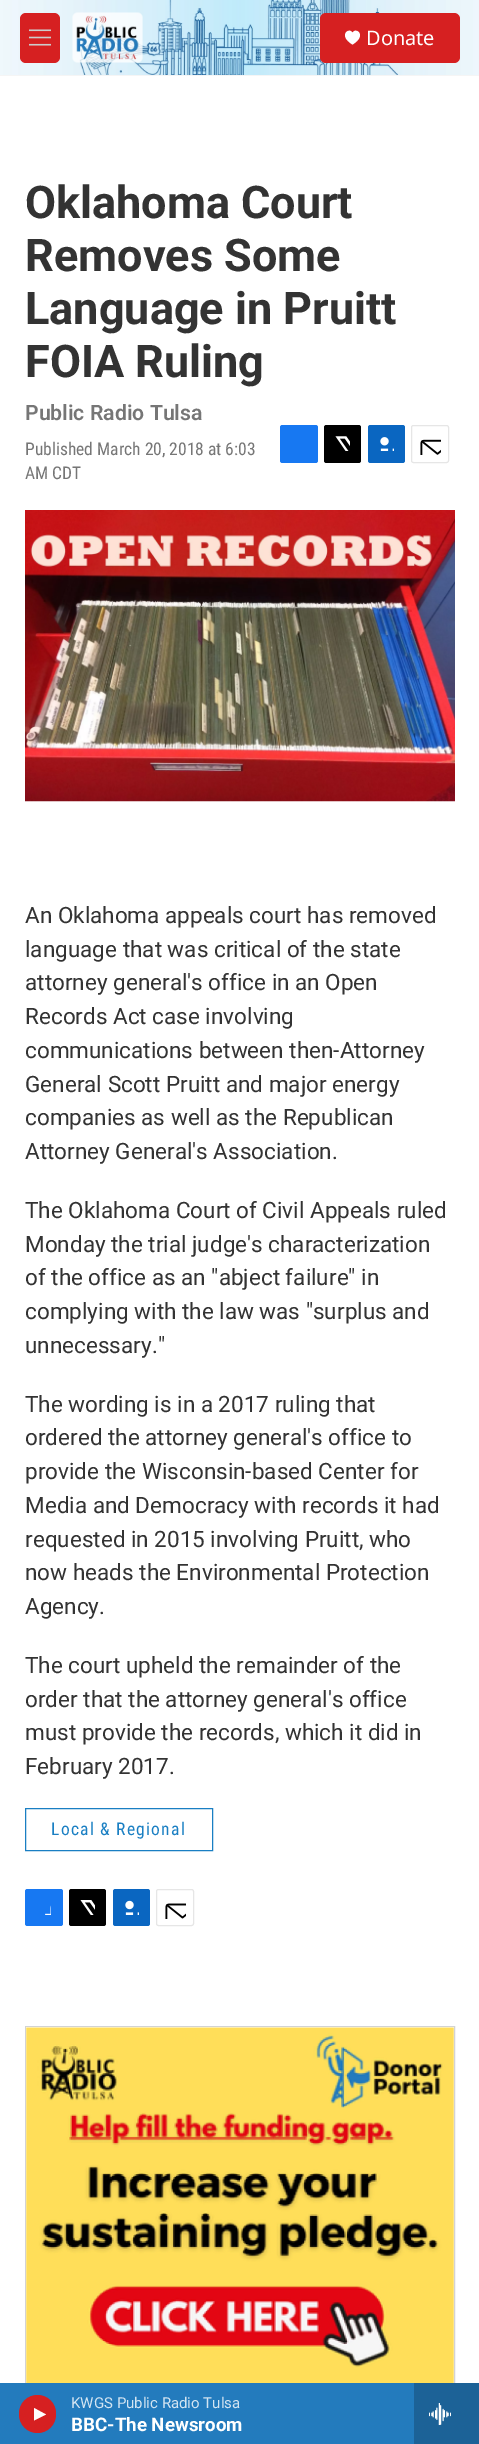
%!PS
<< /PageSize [479 2444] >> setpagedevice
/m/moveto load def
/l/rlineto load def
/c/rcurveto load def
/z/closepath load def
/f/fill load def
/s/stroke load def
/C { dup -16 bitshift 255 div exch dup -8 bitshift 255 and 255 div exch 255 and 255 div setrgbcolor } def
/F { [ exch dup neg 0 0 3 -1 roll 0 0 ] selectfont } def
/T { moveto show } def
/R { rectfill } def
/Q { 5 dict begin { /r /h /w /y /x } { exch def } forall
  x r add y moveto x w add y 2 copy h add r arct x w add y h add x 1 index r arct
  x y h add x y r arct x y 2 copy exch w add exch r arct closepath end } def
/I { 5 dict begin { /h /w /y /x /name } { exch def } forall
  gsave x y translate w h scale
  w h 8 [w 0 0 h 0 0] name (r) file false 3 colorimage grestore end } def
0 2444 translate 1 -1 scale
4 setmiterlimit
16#FFFFFF C
0 0 479 2444 R
16#F5F5F5 C
0 75 479 1 R
(1.rgb) 0 0 479 75 I
16#D62021 C
20 13 40 50 6 Q f
(2.rgb) 29 29 22 17 I
(3.rgb) 72 12 71 51 I
320 13 140 50 6 Q f
16#FFFFFF C
352.5 33 m -2.5 -6.5 -15.5 2 0 11.5 c 15.5 -9.5 2.5 -18 0 -11.5 c z f
/NotoSans-Regular 20 F
(Donate) 366 45 T
16#D3D3D3 C
25.5 2026.5 429 358 rectstroke
16#237BBD C
0 2383 414 61 R
16#D62021 C
19 2395 37 38 18.5 Q f
16#FFFFFF C
34 2408 m 12 6.5 l -12 6 l z f
/Roboto-Regular 15 F
16#D3E5F2 C
(KWGS Public Radio Tulsa) 71 2408 T
/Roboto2-Bold 18.75 F
16#FFFFFF C
(BBC-The Newsroom) 71 2431 T
16#1C6297 C
414 2383 65 61 R
(4.rgb) 429 2403 22 22 I
/Roboto-Bold 45 F
16#333333 C
(Oklahoma Court) 25 218 T
(Removes Some) 25 271 T
(Language in Pruitt) 25 324 T
(FOIA Ruling) 25 377 T
/Roboto-SemiBold 21.25 F
16#767676 C
(Public Radio Tulsa) 25 420 T
/RobotoCondensed-Regular 17.5 F
(Published March 20, 2018 at 6:03) 25 455 T
(AM CDT) 25 479 T
16#1778F2 C
280 425 38 38 2.5 Q f
16#000000 C
324 425 37 38 2.5 Q f
(5.rgb) 335 436 15 15 I
16#0A66C1 C
368 425 37 38 2.5 Q f
(6.rgb) 380 437 14 14 I
16#E6E6E6 C
411.5 425.5 37 37 2 Q s
(7.rgb) 420 439 21 16 I
(8.rgb) 25 510 430 292 I
/Roboto-Regular 22.5 F
16#333333 C
(An Oklahoma appeals court has removed) 25 923 T
(language that was critical of the state) 25 957 T
(attorney general's office in an Open) 25 990 T
(Records Act case involving) 25 1024 T
(communications between then-Attorney) 25 1058 T
(General Scott Pruitt and major energy) 25 1092 T
(companies as well as the Republican) 25 1125 T
(Attorney General's Association.) 25 1159 T
(The Oklahoma Court of Civil Appeals ruled) 25 1218 T
(Monday the trial judge's characterization) 25 1252 T
(of the office as an "abject failure" in) 25 1285 T
(complying with the law was "surplus and) 25 1319 T
(unnecessary.") 25 1353 T
(The wording is in a 2017 ruling that) 25 1412 T
(ordered the attorney general's office to) 25 1445 T
(provide the Wisconsin-based Center for) 25 1479 T
(Media and Democracy with records it had) 25 1513 T
(requested in 2015 involving Pruitt, who) 25 1547 T
(now heads the Environmental Protection) 25 1580 T
(Agency.) 25 1614 T
(The court upheld the remainder of the) 25 1673 T
(order that the attorney general's office) 25 1707 T
(must provide the records, which it did in) 25 1740 T
(February 2017.) 25 1774 T
16#1A7FC3 C
25.5 1808.5 187 42 rectstroke
/RobotoCondensed-Regular 17.5 F
51 1835 m 1.25 0 (Local & Regional) ashow
16#1778F2 C
25 1889 38 37 2.5 Q f
(9.rgb) 45 1905 6 10 I
16#000000 C
69 1889 37 37 2.5 Q f
(10.rgb) 80 1900 15 15 I
16#0A66C1 C
113 1889 37 37 2.5 Q f
(11.rgb) 125 1900 14 15 I
16#E6E6E6 C
156.5 1889.5 37 36 2 Q s
(12.rgb) 165 1903 21 16 I
(13.rgb) 26 2027 428 356 I
showpage
